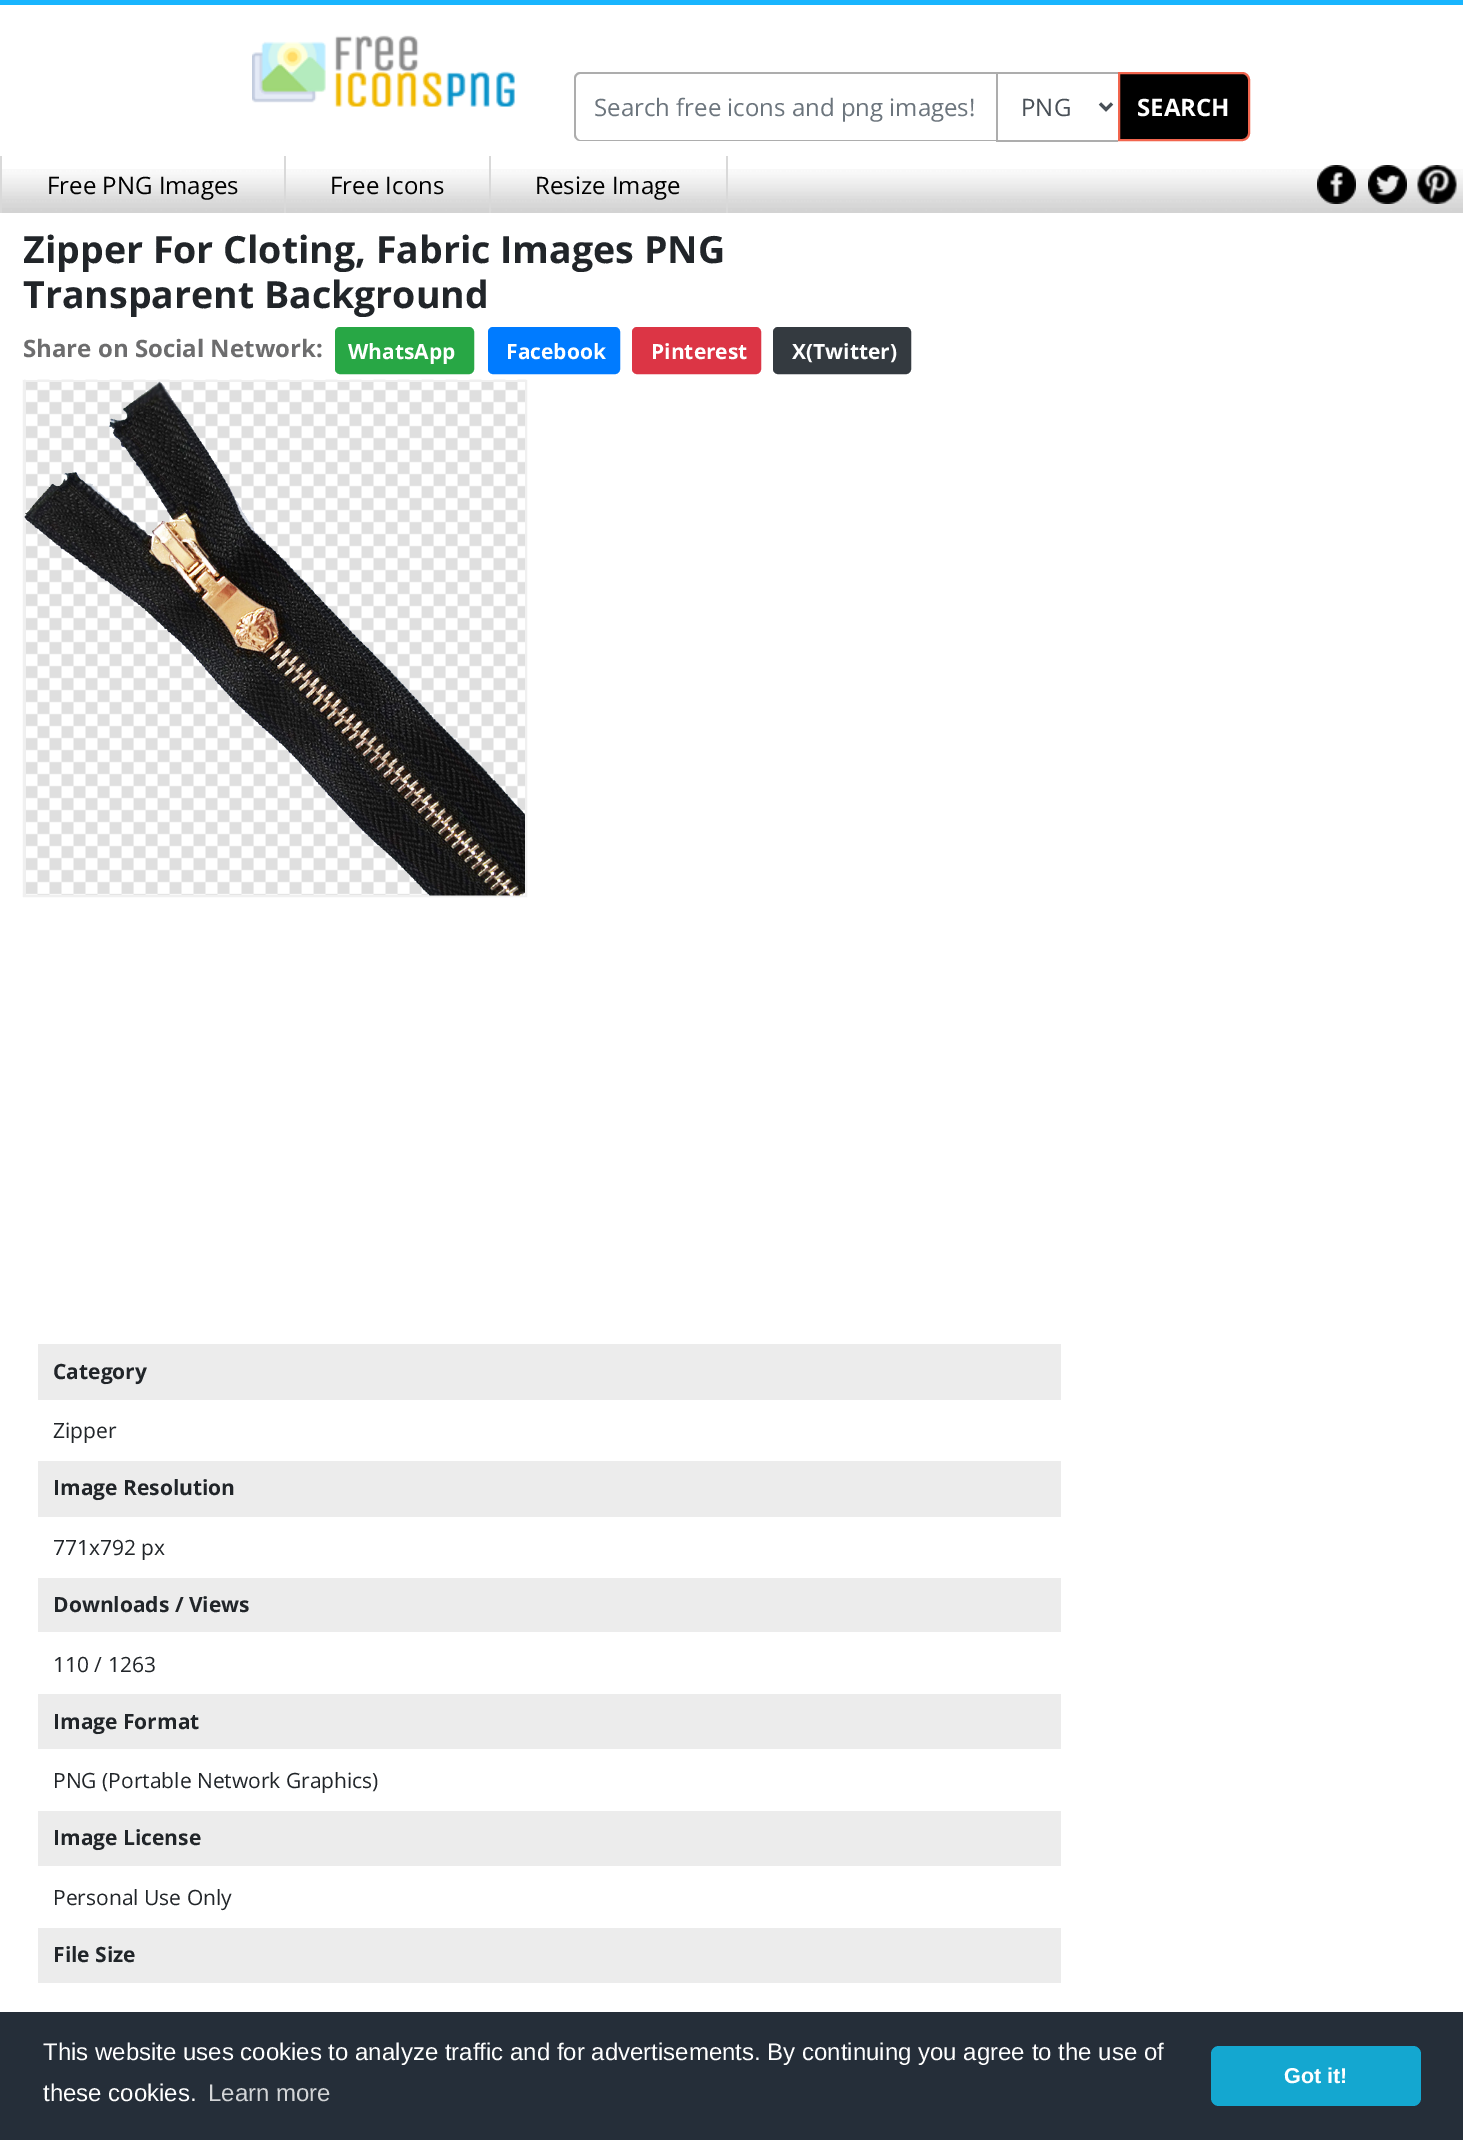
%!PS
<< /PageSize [1463 2140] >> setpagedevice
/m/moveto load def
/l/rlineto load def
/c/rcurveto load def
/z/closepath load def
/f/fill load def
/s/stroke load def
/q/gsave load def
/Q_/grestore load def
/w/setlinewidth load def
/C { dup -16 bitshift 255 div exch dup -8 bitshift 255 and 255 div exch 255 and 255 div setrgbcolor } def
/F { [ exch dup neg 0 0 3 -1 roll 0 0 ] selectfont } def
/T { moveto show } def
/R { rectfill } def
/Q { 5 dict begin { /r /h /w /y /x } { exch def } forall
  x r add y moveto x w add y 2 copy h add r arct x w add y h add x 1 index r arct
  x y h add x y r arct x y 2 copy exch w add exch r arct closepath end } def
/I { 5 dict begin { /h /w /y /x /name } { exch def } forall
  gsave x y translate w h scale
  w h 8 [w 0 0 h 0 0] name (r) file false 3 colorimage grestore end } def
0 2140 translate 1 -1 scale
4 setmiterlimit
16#FFFFFF C
0 0 1463 2140 R
16#19B5FE C
0 0 1463 5 R
(1.rgb) 252 35 263 72 I
16#ADADAD C
580 72 m 418 0 l 0 69 l -418 0 l -3 0 -6 -3 -6 -6 c 0 -57 l 0 -3 3 -6 6 -6 c z 580 74 m 418 0 l 0 66 l -418 0 l -2 0 -4 -3 -4 -5 c 0 -57 l 0 -2 2 -4 4 -4 c z eofill
/OpenSans-Regular 24 F
16#6C757D C
(Search free icons and png images!) 594 116 T
16#ADADAD C
996 72 122 2 R
996 140 122 2 R
996 72 2 69 R
16#495057 C
3 w
1100 103.5 m 6 6 l 6 -6 l s
(PNG) 1021 116 T
16#000000 C
1119 73 m 123 0 l 4 0 7 3 7 7 c 0 53 l 0 4 -3 7 -7 7 c -123 0 l z q f Q_
16#F2654E C
2 w
s
/OpenSans-Bold 24 F
16#FFFFFF C
(SEARCH) 1137 116 T
(2.rgb) 2 169 1461 44 I
16#D9D9D9 C
0 156 2 57 R
284 156 2 57 R
/OpenSans-Regular 24 F
16#000000 C
(Free PNG Images) 47 194 T
16#D9D9D9 C
489 156 2 57 R
16#000000 C
(Free Icons) 330 194 T
16#D9D9D9 C
726 156 2 57 R
16#000000 C
(Resize Image) 535 194 T
(3.rgb) 1317 165 39 39 I
(4.rgb) 1368 165 39 39 I
(5.rgb) 1417 165 40 39 I
/OpenSans-Bold 37.5 F
16#212529 C
(Zipper For Cloting, Fabric Images PNG) 23 263 T
(Transparent Background) 23 308 T
/OpenSans-Bold 24 F
16#6D6D6E C
(Share on Social Network:) 23 357 T
16#28A745 C
336 328 137 45 4 Q q f Q_
s
/OpenSans-Bold 21 F
16#FFFFFF C
(WhatsApp) 348 359 T
16#007BFF C
489 328 130 45 4 Q q f Q_
s
16#FFFFFF C
(Facebook) 506 359 T
16#DC3545 C
633 328 127 45 4 Q q f Q_
s
16#FFFFFF C
(Pinterest) 651 359 T
16#343A40 C
774 328 136 45 4 Q q f Q_
s
16#FFFFFF C
(X\(Twitter\)) 792 359 T
(6.rgb) 22 379 505 518 I
16#F0F0F0 C
24 381 502 515 rectstroke
(7.rgb) 24 381 501 515 I
16#ECECEC C
38 1344 1023 56 R
16#212529 C
(Category) 53 1379 T
/OpenSans-Regular 21 F
(Zipper) 53 1438 T
16#ECECEC C
38 1461 1023 56 R
/OpenSans-Bold 21 F
16#212529 C
(Image Resolution) 53 1495 T
/OpenSans-Regular 21 F
(771x792 px) 53 1555 T
16#ECECEC C
38 1578 1023 54 R
/OpenSans-Bold 21 F
16#212529 C
(Downloads / Views) 53 1612 T
/OpenSans-Regular 21 F
(110 / 1263) 53 1672 T
16#ECECEC C
38 1694 1023 55 R
/OpenSans-Bold 21 F
16#212529 C
(Image Format) 53 1729 T
/OpenSans-Regular 21 F
(PNG \(Portable Network Graphics\)) 53 1788 T
16#ECECEC C
38 1811 1023 55 R
/OpenSans-Bold 21 F
16#212529 C
(Image License) 53 1845 T
/OpenSans-Regular 21 F
(Personal Use Only) 53 1905 T
16#ECECEC C
38 1928 1023 55 R
/OpenSans-Bold 21 F
16#212529 C
(File Size) 53 1962 T
16#252E39 C
0 2012 1463 128 R
/LiberationSans-Regular 24 F
16#FFFFFF C
(This website uses cookies to analyze traffic and for advertisements. By continuing you agree to the use of) 43 2060 T
(these cookies.) 43 2101 T
16#D3D5D7 C
(Learn more) 208 2101 T
16#14A7D0 C
1211 2046 210 60 8 Q f
/LiberationSans-Bold 21.5 F
16#FFFFFF C
(Got it!) 1284 2083 T
showpage
